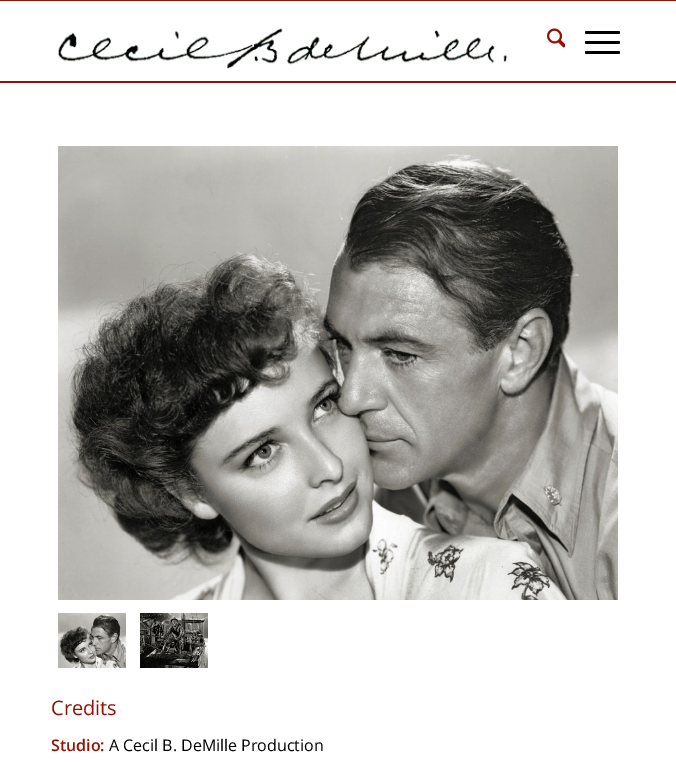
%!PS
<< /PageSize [676 762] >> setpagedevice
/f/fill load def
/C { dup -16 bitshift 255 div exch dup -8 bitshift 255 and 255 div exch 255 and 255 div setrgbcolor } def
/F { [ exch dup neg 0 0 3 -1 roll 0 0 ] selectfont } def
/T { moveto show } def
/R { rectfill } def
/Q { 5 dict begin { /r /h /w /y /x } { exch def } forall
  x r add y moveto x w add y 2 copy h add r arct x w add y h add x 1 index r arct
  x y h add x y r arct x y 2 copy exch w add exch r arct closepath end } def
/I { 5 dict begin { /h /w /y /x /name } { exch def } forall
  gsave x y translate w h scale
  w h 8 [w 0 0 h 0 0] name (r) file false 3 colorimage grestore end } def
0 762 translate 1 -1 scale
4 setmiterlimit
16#FFFFFF C
0 0 676 762 R
16#971001 C
0 0 676 1 R
0 81 676 2 R
(1.rgb) 58 28 449 41 I
(2.rgb) 547 28 18 20 I
16#000000 C
585 41 35 3 1.5 Q f
585 31 35 3 1.5 Q f
585 51 35 3 1.5 Q f
(3.rgb) 58 146 560 454 I
(4.rgb) 58 613 68 55 I
(5.rgb) 140 613 68 55 I
/OpenSans-Regular 20 F
16#971001 C
(Credits) 51 715 T
/OpenSans-SemiBold 16 F
(Studio:) 51 751 T
/OpenSans-Regular 16 F
16#000000 C
(A Cecil B. DeMille Production) 109 751 T
showpage
